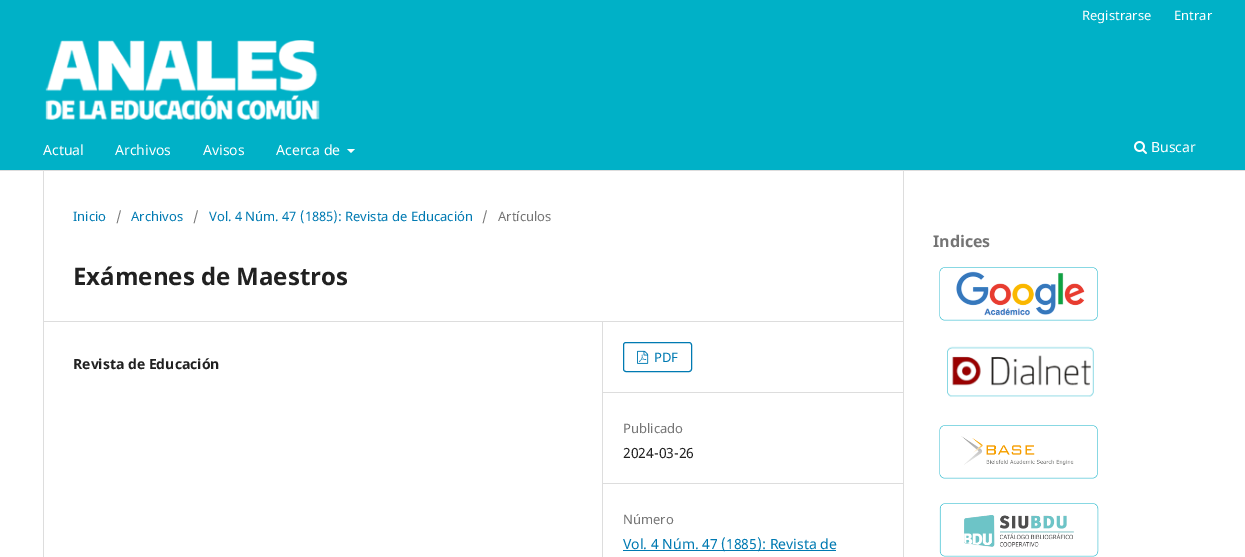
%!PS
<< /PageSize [1245 557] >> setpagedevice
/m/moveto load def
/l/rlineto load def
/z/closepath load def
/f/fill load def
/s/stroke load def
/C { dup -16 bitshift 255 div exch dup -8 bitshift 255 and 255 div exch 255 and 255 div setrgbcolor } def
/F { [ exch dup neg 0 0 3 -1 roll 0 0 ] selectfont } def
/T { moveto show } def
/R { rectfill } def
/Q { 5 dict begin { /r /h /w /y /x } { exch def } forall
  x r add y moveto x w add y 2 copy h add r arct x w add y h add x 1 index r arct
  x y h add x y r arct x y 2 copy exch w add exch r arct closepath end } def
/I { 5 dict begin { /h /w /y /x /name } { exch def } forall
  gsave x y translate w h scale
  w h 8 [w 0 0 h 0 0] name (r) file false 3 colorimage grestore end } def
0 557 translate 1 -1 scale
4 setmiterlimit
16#FFFFFF C
0 0 1245 557 R
16#00B1C7 C
0 0 1245 170 R
16#DDDDDD C
0 170 1245 1 R
/NotoSans-Regular 13 F
16#FFFFFF C
(Registrarse) 1082 20 T
(Entrar) 1174 20 T
/NotoSans-Regular 14 F
(Actual) 43 155 T
(Archivos) 115 155 T
(Avisos) 203 155 T
(Acerca de) 276 155 T
347 149 m 8 0 l -4 4 l z f
(1.rgb) 1134 141 13 13 I
(Buscar) 1151 152 T
(2.rgb) 45 40 275 80 I
16#DDDDDD C
43 321 860 1 R
43 171 1 386 R
/NotoSans-Regular 13 F
16#007AB2 C
(Inicio) 73 221 T
16#757575 C
(/) 116 221 T
16#007AB2 C
(Archivos) 131 221 T
16#757575 C
(/) 193 221 T
16#007AB2 C
(Vol. 4 Núm. 47 \(1885\): Revista de Educación) 209 221 T
16#757575 C
(/) 482 221 T
(Artículos) 498 221 T
/NotoSans-Bold 24 F
16#212121 C
(Exámenes de Maestros) 73 285 T
/NotoSans-Bold 14 F
(Revista de Educación) 73 369 T
16#DDDDDD C
602 322 1 235 R
603 392 300 1 R
16#007AB2 C
623.5 342.5 68 29 2.5 Q s
(3.rgb) 637 350 12 14 I
/NotoSans-Regular 13 F
(PDF) 654 362 T
16#DDDDDD C
603 483 300 1 R
16#757575 C
(Publicado) 623 433 T
/NotoSans-Regular 14 F
16#212121 C
(2024-03-26) 623 458 T
/NotoSans-Regular 13 F
16#757575 C
(Número) 623 524 T
16#007AB2 C
623 550 213 1 R
/NotoSans-Regular 14 F
(Vol. 4 Núm. 47 \(1885\): Revista de) 623 549 T
16#DDDDDD C
903 171 1 386 R
/NotoSans-Bold 16 F
16#757575 C
(Indices) 933 247 T
(4.rgb) 939 267 159 54 I
(5.rgb) 947 346 147 51 I
(6.rgb) 939 425 159 54 I
(7.rgb) 939 503 160 54 I
showpage
